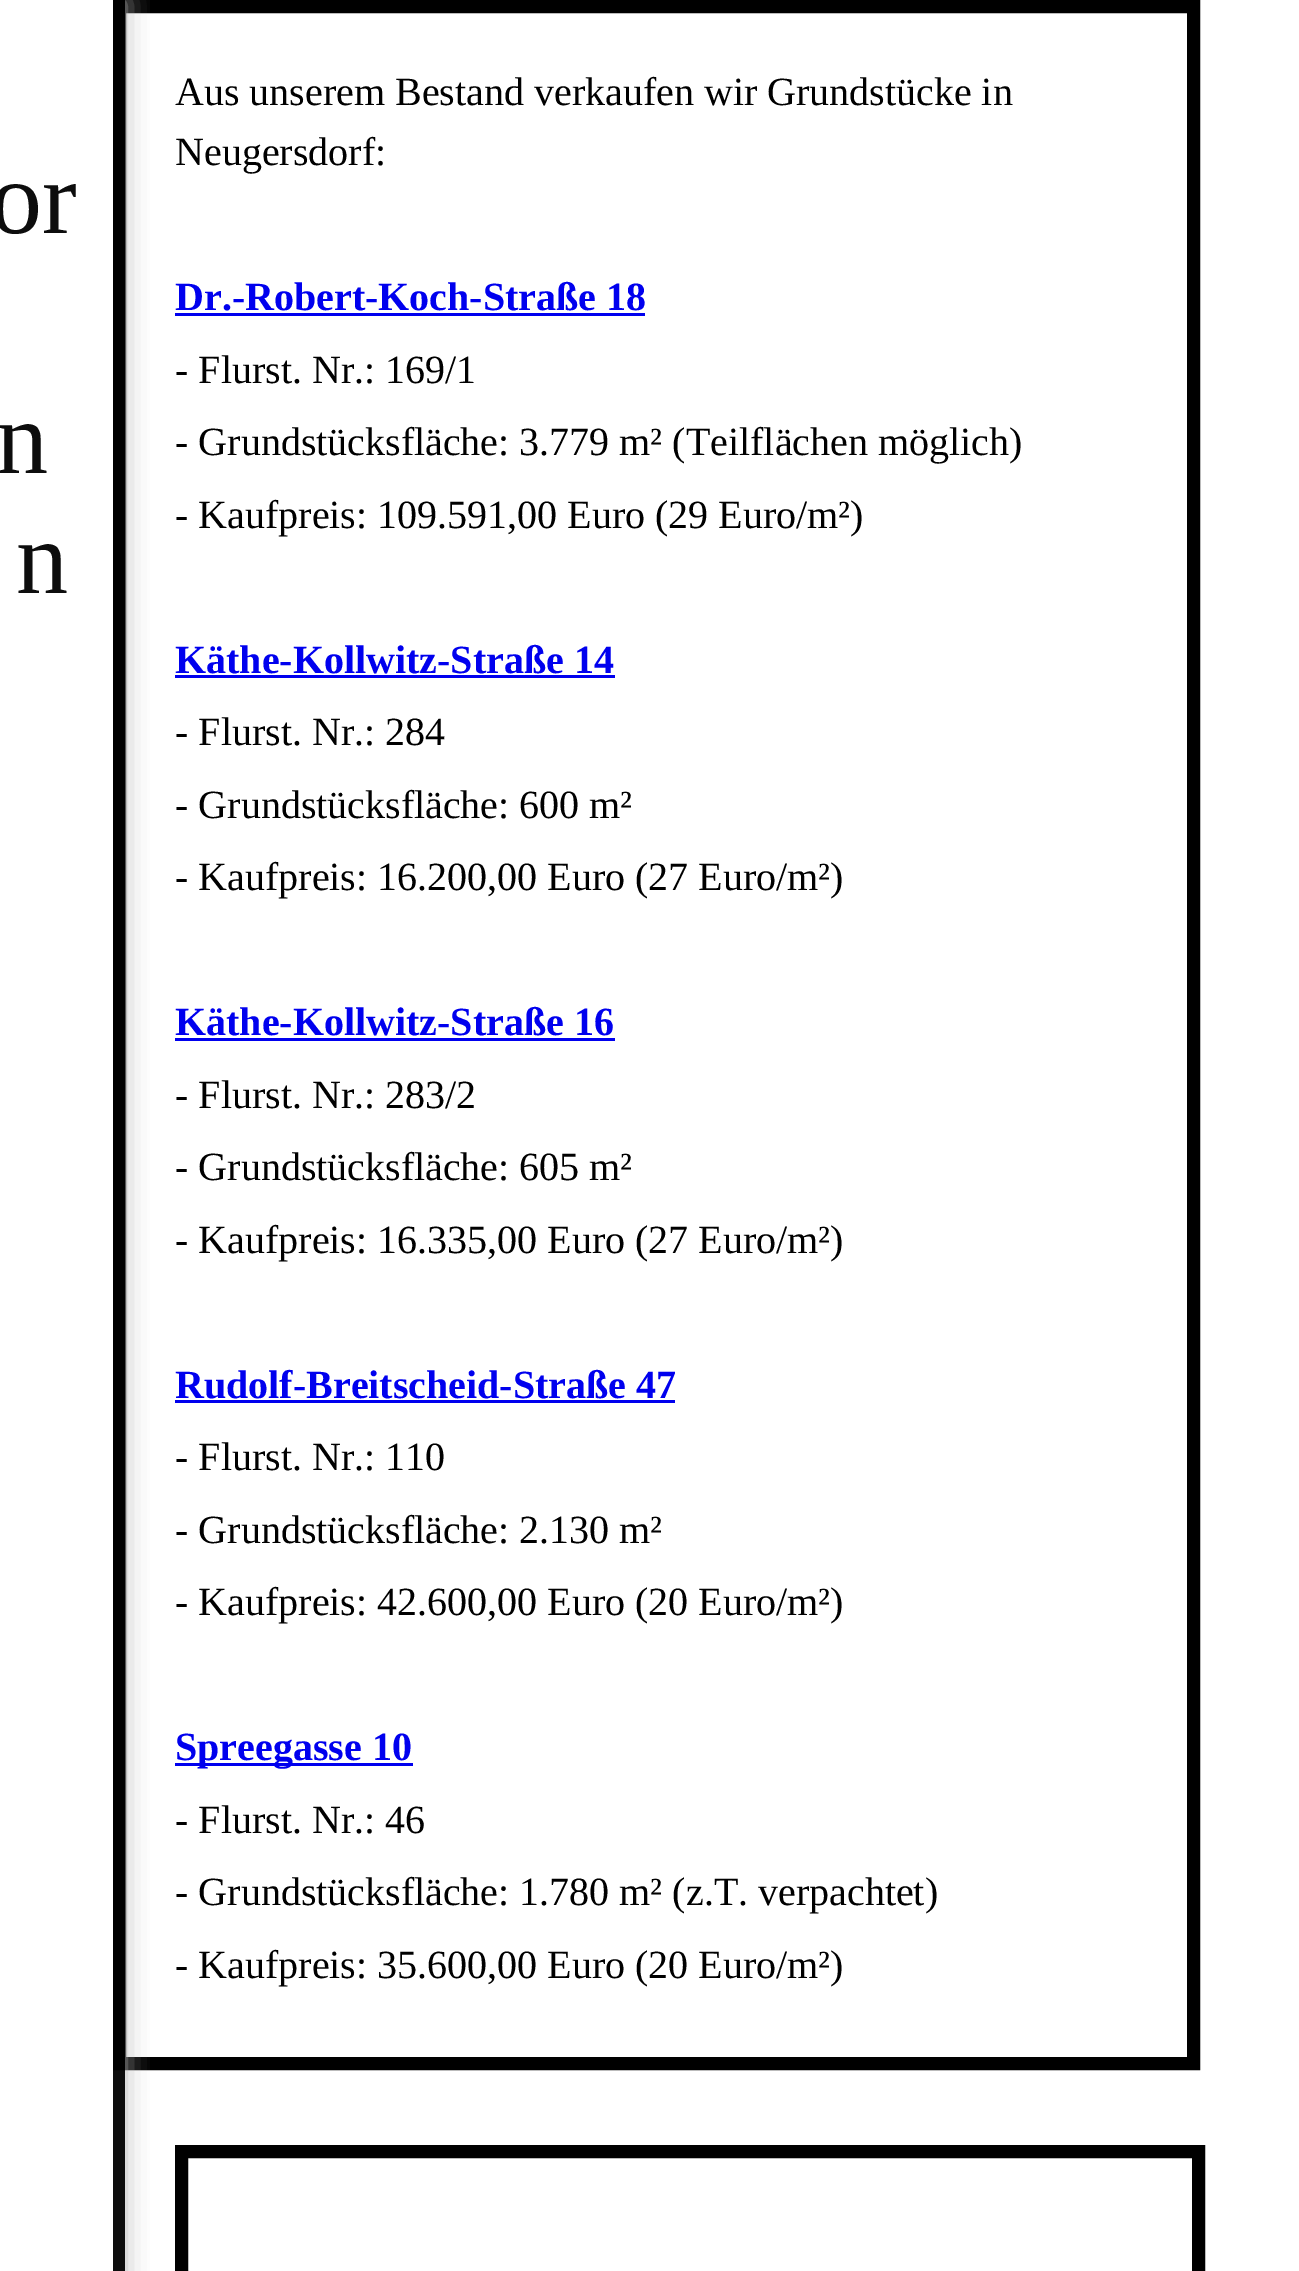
%!PS
<< /PageSize [1299 2271] /PageUsesTransparency true >> setpagedevice
/q/gsave load def
/Q_/grestore load def
/w/setlinewidth load def
/C { dup -16 bitshift 255 div exch dup -8 bitshift 255 and 255 div exch 255 and 255 div setrgbcolor } def
/F { [ exch dup neg 0 0 3 -1 roll 0 0 ] selectfont } def
/T { moveto show } def
/R { rectfill } def
/A { dup .setfillconstantalpha .setstrokeconstantalpha } def
/Q { 5 dict begin { /r /h /w /y /x } { exch def } forall
  x r add y moveto x w add y 2 copy h add r arct x w add y h add x 1 index r arct
  x y h add x y r arct x y 2 copy exch w add exch r arct closepath end } def
/S { 12 dict begin { /a /b /q /h /w /y /x } { exch def } forall gsave /was 0 def
  9 -2 -9 { dup b mul 4 div /e exch def 1 sub .425 mul 2.718 exch exp 1 add a .99 .min exch div /now exch def
    1 1 now sub 1 was sub div sub A /was now def
    w h .min e 2 mul add 0 gt { x e sub y e sub w e 2 mul add h e 2 mul add
      q e add b .6 mul add w h .min 2 div e add .min 0 .max Q fill } if } for grestore end } def
0 .pushpdf14devicefilter
0 2271 translate 1 -1 scale
4 setmiterlimit
16#FFFFFF C
0 0 1299 2271 R
16#000000 C
13 w
119.5 6.5 1074 2057 rectstroke
q
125 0 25 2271 rectclip
16#B5B5B5 C
-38 0 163 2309 0 12.5 .95 S
Q_
0.95 A
113 2070 12 201 R
/LiberationSerif-Regular 104 F
1 A
16#0D0D0D C
(or) -10 233 T
(n) -4 473 T
(n) 16 593 T
/LiberationSerif-Regular 40 F
16#000000 C
(Aus unserem Bestand verkaufen wir Grundstücke in) 175 105 T
(Neugersdorf:) 175 165 T
/LiberationSerif-Bold 40 F
16#0000EE C
(Dr.-Robert-Koch-Straße 18) 175 310 T
175 313 470 3 R
/LiberationSerif-Regular 40 F
16#000000 C
(- Flurst. Nr.: 169/1) 175 383 T
(- Grundstücksfläche: 3.779 m² \(Teilflächen möglich\)) 175 455 T
(- Kaufpreis: 109.591,00 Euro \(29 Euro/m²\)) 175 528 T
/LiberationSerif-Bold 40 F
16#0000EE C
(Käthe-Kollwitz-Straße 14) 175 673 T
175 675 440 3 R
/LiberationSerif-Regular 40 F
16#000000 C
(- Flurst. Nr.: 284) 175 745 T
(- Grundstücksfläche: 600 m²) 175 818 T
(- Kaufpreis: 16.200,00 Euro \(27 Euro/m²\)) 175 890 T
/LiberationSerif-Bold 40 F
16#0000EE C
(Käthe-Kollwitz-Straße 16) 175 1035 T
175 1038 440 3 R
/LiberationSerif-Regular 40 F
16#000000 C
(- Flurst. Nr.: 283/2) 175 1108 T
(- Grundstücksfläche: 605 m²) 175 1180 T
(- Kaufpreis: 16.335,00 Euro \(27 Euro/m²\)) 175 1253 T
/LiberationSerif-Bold 40 F
16#0000EE C
(Rudolf-Breitscheid-Straße 47) 175 1398 T
175 1400 500 3 R
/LiberationSerif-Regular 40 F
16#000000 C
(- Flurst. Nr.: 110) 175 1470 T
(- Grundstücksfläche: 2.130 m²) 175 1543 T
(- Kaufpreis: 42.600,00 Euro \(20 Euro/m²\)) 175 1615 T
16#0000EE C
175 1763 238 3 R
/LiberationSerif-Bold 40 F
(Spreegasse 10) 175 1760 T
/LiberationSerif-Regular 40 F
16#000000 C
(- Flurst. Nr.: 46) 175 1833 T
(- Grundstücksfläche: 1.780 m² \(z.T. verpachtet\)) 175 1905 T
(- Kaufpreis: 35.600,00 Euro \(20 Euro/m²\)) 175 1978 T
181.5 2151.5 1017 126 rectstroke
.poppdf14devicefilter showpage
